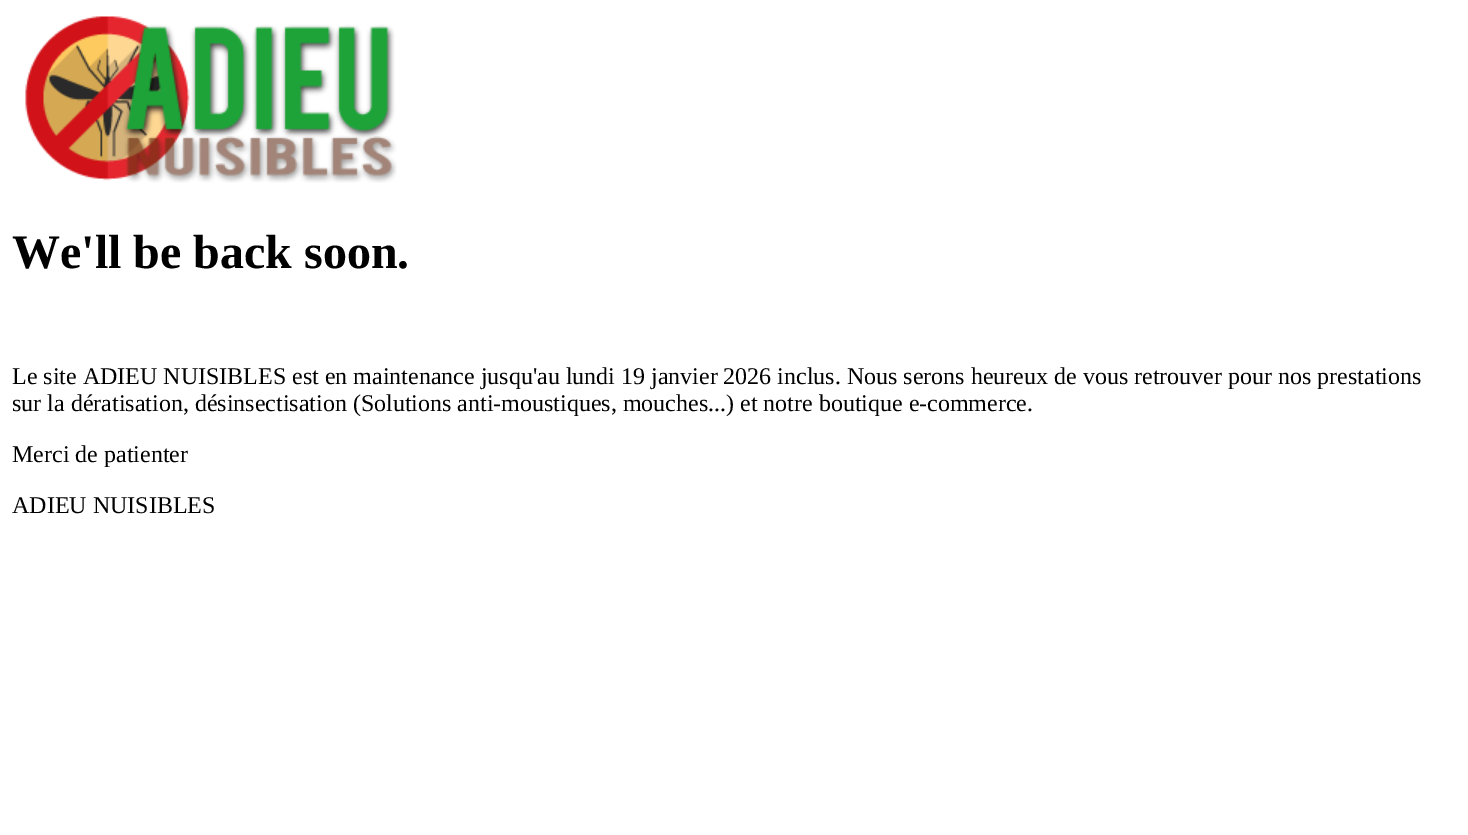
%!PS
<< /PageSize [1468 835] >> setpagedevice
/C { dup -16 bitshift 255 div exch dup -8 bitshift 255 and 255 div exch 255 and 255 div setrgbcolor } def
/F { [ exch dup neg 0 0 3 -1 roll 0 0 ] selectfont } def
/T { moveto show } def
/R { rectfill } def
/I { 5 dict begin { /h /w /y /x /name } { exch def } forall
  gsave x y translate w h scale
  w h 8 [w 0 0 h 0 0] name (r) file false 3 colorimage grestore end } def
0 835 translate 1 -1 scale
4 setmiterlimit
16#FFFFFF C
0 0 1468 835 R
(1.rgb) 25 16 372 167 I
/LiberationSerif-Bold 48 F
16#000000 C
(We'll be back soon.) 12 268 T
/LiberationSerif-Regular 24 F
(Le site ADIEU NUISIBLES est en maintenance jusqu'au lundi 19 janvier 2026 inclus. Nous serons heureux de vous retrouver pour nos prestations) 12 384 T
(sur la dératisation, désinsectisation \(Solutions anti-moustiques, mouches...\) et notre boutique e-commerce.) 12 411 T
(Merci de patienter) 12 462 T
(ADIEU NUISIBLES) 12 513 T
showpage
